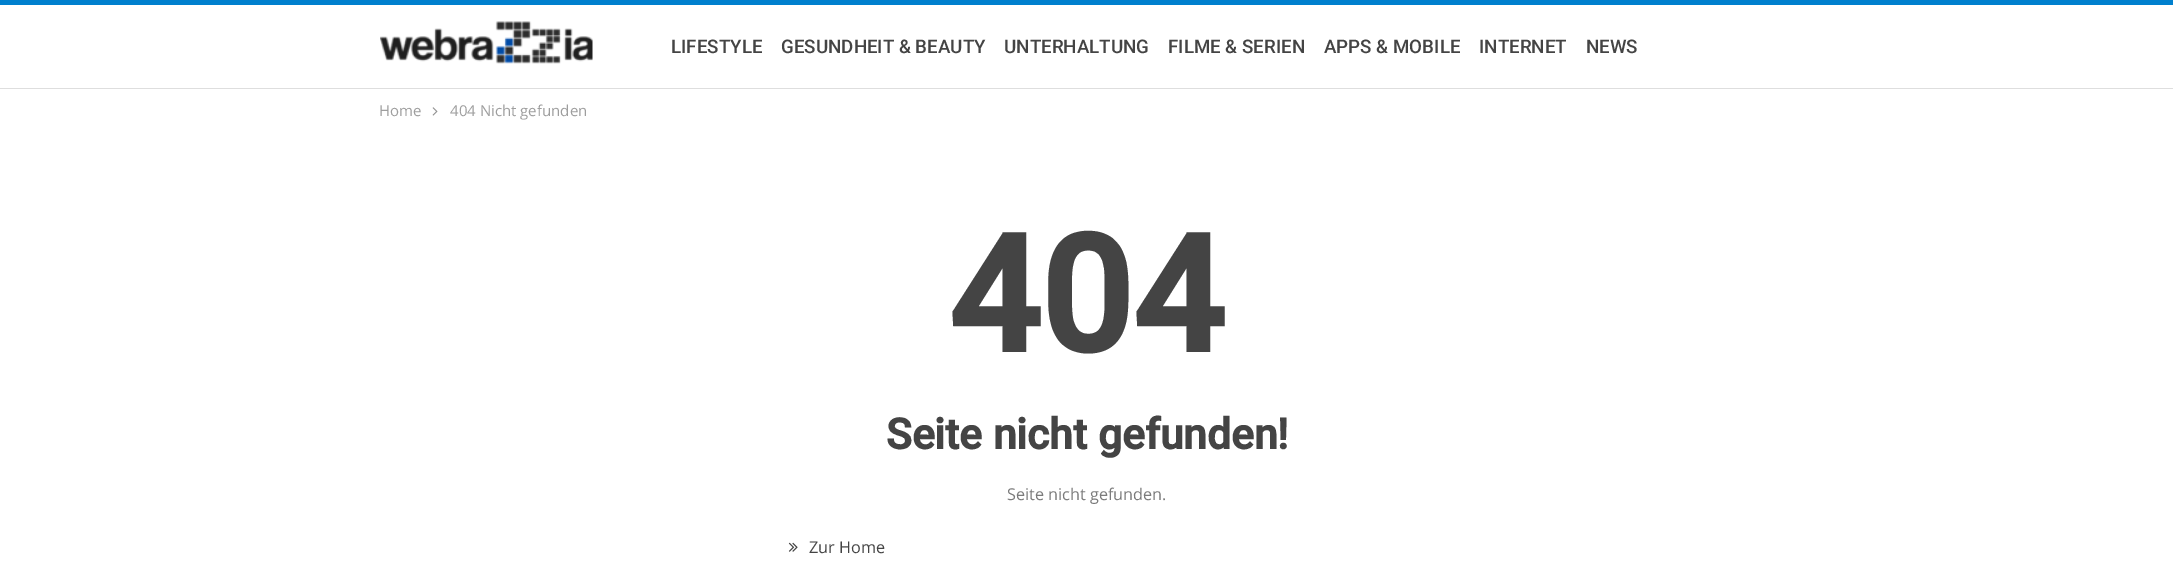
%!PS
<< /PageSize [2173 586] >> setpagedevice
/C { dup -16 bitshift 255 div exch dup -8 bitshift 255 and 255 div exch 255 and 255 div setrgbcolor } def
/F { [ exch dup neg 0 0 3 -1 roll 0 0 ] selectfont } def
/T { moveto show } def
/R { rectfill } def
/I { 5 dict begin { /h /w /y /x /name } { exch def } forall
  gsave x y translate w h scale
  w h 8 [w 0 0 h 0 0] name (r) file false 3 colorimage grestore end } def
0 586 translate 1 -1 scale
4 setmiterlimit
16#FFFFFF C
0 0 2173 586 R
16#0080CE C
0 0 2173 5 R
16#DEDEDE C
0 88 2173 1 R
(1.rgb) 380 21 213 43 I
/Roboto-Medium 18.75 F
16#444444 C
(LIFESTYLE) 671 53 T
(GESUNDHEIT & BEAUTY) 781 53 T
(UNTERHALTUNG) 1004 53 T
(FILME & SERIEN) 1168 53 T
(APPS & MOBILE) 1324 53 T
(INTERNET) 1479 53 T
(NEWS) 1586 53 T
/OpenSans-Regular 15 F
16#9E9E9E C
(Home) 379 116 T
(2.rgb) 432 107 6 9 I
(404 Nicht gefunden) 450 116 T
/Roboto-Bold 162 F
16#444444 C
(404) 948 352 T
/Roboto-Bold 42.5 F
(Seite nicht gefunden!) 886 449 T
/OpenSans-Regular 16.25 F
16#7B7B7B C
(Seite nicht gefunden.) 1007 500 T
(3.rgb) 788 542 10 10 I
16#444444 C
(Zur Home) 809 553 T
showpage
